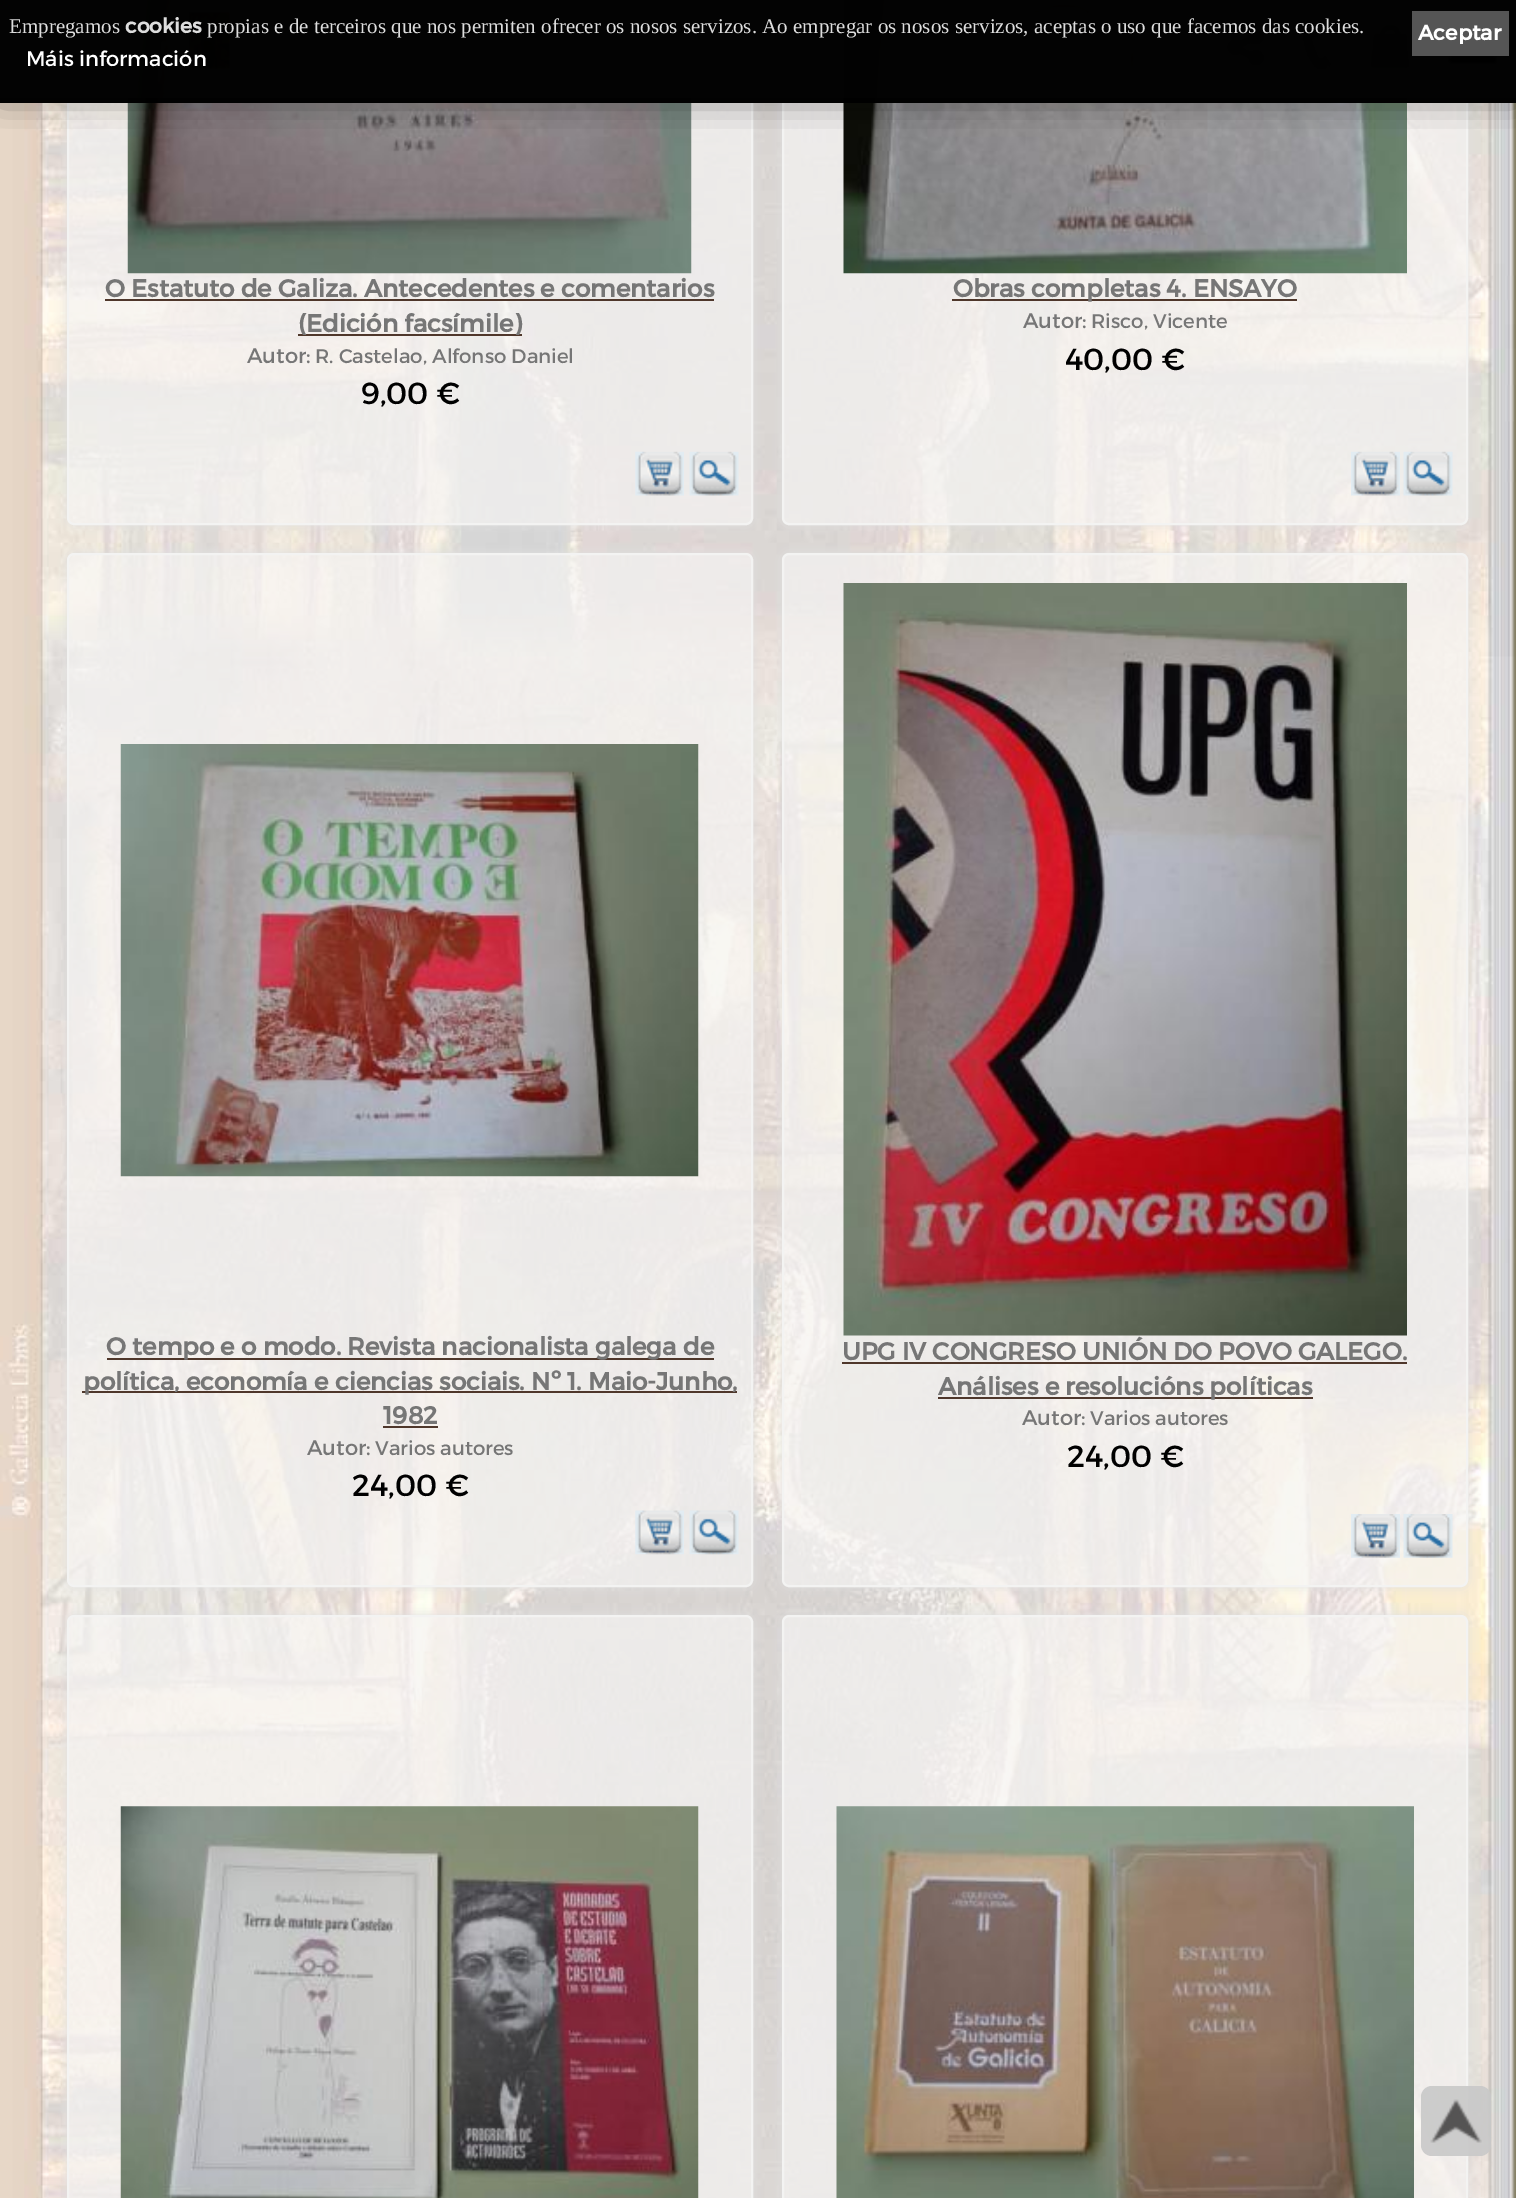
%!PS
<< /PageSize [1516 2198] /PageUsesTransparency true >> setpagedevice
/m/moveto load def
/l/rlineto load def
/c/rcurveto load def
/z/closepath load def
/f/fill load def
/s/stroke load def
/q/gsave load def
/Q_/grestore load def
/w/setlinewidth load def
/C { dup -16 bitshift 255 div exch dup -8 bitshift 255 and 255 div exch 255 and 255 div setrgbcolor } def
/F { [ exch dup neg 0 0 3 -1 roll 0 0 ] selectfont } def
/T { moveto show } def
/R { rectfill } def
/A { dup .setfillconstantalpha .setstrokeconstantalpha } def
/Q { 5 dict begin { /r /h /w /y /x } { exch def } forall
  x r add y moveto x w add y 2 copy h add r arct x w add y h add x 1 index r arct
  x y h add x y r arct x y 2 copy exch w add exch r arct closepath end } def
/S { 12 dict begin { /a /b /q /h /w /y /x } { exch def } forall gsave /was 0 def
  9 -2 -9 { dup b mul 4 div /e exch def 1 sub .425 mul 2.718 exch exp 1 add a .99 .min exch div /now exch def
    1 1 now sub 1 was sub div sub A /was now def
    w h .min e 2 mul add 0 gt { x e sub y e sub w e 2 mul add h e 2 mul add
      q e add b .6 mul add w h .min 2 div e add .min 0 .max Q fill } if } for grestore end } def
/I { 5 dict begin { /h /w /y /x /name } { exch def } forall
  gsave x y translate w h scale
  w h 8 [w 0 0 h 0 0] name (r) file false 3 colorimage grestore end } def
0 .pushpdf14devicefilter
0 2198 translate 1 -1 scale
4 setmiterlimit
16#FFFFFF C
0 0 1516 2198 R
(1.rgb) 0 0 1516 2198 I
q
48 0 m 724 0 l 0 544 l -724 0 l z 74 -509 m 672 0 l 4 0 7 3 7 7 c 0 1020 l 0 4 -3 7 -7 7 c -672 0 l -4 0 -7 -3 -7 -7 c 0 -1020 l 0 -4 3 -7 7 -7 c z eoclip newpath
16#DFDFDF C
67 -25 686 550 7 6 1 S
Q_
0.7 A
16#F5F4F3 C
68 -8 684 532 6 Q f
1 A
16#F3F3F2 C
2 w
68 -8 684 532 6 Q s
(7.rgb) 127 0 565 274 I
q
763 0 m 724 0 l 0 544 l -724 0 l z 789 -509 m 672 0 l 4 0 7 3 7 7 c 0 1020 l 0 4 -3 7 -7 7 c -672 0 l -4 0 -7 -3 -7 -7 c 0 -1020 l 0 -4 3 -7 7 -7 c z eoclip newpath
16#DFDFDF C
782 -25 686 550 7 6 1 S
Q_
0.7 A
16#F5F4F3 C
783 -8 684 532 6 Q f
1 A
16#F3F3F2 C
783 -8 684 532 6 Q s
(10.rgb) 843 0 564 274 I
0.8 A
16#F5F4F3 C
0 0 1516 98 R
q
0 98 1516 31 rectclip
1 A
16#000000 C
0 0 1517 98 0 17.5 .5 S
Q_
1 A
(2.rgb) 187 10 45 61 I
(3.rgb) 1226 29 39 37 I
(4.rgb) 1303 25 28 44 I
(5.rgb) 1371 25 39 43 I
(6.rgb) 1444 56 59 14 I
0.99 A
16#000000 C
0 0 1516 103 R
/LiberationSerif-Regular 21 F
1 A
16#DDDDDD C
(Empregamos) 9 33 T
/Montserrat-Bold 20.5 F
(cookies) 125 33 T
/LiberationSerif-Regular 21 F
(propias e de terceiros que nos permiten ofrecer os nosos servizos. Ao empregar os nosos servizos, aceptas o uso que facemos das cookies.) 207 33 T
16#555555 C
1412 11 97 45 R
/Montserrat-Bold 21 F
16#FFFFFF C
(Aceptar) 1418 40 T
/Montserrat-Regular 21 F
(Máis información) 26 66 T
/Montserrat-Bold 24.5 F
16#767676 C
(O Estatuto de Galiza. Antecedentes e comentarios) 105 297 T
16#4F372B C
105 299 609 2 R
298 334 224 2 R
16#767676 C
(\(Edición facsímile\)) 298 332 T
/Montserrat-Regular 21 F
(Autor:) 247 363 T
/Montserrat-Regular 19.75 F
(R. Castelao, Alfonso Daniel) 315 363 T
/Montserrat-Regular 30.5 F
16#000000 C
(9,00 €) 361 404 T
(8.rgb) 635 451 49 45 I
(9.rgb) 689 451 50 45 I
16#4F372B C
952 299 345 2 R
/Montserrat-Bold 24.5 F
16#767676 C
(Obras completas 4. ENSAYO) 953 297 T
/Montserrat-Regular 21 F
(Autor:) 1023 328 T
/Montserrat-Regular 19.75 F
(Risco, Vicente) 1091 328 T
/Montserrat-Regular 30.5 F
16#000000 C
(40,00 €) 1065 370 T
(11.rgb) 1351 451 49 45 I
(12.rgb) 1403 451 50 45 I
q
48 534 m 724 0 l 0 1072 l -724 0 l z 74 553 m 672 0 l 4 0 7 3 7 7 c 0 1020 l 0 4 -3 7 -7 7 c -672 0 l -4 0 -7 -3 -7 -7 c 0 -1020 l 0 -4 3 -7 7 -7 c z eoclip newpath
16#DFDFDF C
67 553 686 1034 7 6 1 S
Q_
0.7 A
16#F5F4F3 C
68 554 684 1032 6 Q f
1 A
16#F3F3F2 C
68 554 684 1032 6 Q s
(13.rgb) 120 744 579 433 I
16#4F372B C
107 1358 607 2 R
/Montserrat-Bold 24.5 F
16#767676 C
(O tempo e o modo. Revista nacionalista galega de) 106 1355 T
16#4F372B C
82 1391 655 2 R
16#767676 C
(política, economía e ciencias sociais. Nº 1. Maio-Junho,) 83 1390 T
(1982) 383 1424 T
16#4F372B C
383 1426 55 2 R
/Montserrat-Regular 21 F
16#767676 C
(Autor:) 307 1455 T
/Montserrat-Regular 19.75 F
(Varios autores) 375 1455 T
/Montserrat-Regular 30.5 F
16#000000 C
(24,00 €) 352 1496 T
(14.rgb) 635 1510 49 45 I
(15.rgb) 689 1510 50 45 I
q
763 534 m 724 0 l 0 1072 l -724 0 l z 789 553 m 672 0 l 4 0 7 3 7 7 c 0 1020 l 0 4 -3 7 -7 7 c -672 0 l -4 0 -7 -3 -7 -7 c 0 -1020 l 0 -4 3 -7 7 -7 c z eoclip newpath
16#DFDFDF C
782 553 686 1034 7 6 1 S
Q_
0.7 A
16#F5F4F3 C
783 554 684 1032 6 Q f
1 A
16#F3F3F2 C
783 554 684 1032 6 Q s
(16.rgb) 843 583 564 753 I
/Montserrat-Bold 24.5 F
16#767676 C
(UPG IV CONGRESO UNIÓN DO POVO GALEGO.) 842 1360 T
16#4F372B C
842 1362 565 2 R
938 1397 375 2 R
16#767676 C
(Análises e resolucións políticas) 938 1395 T
/Montserrat-Regular 21 F
(Autor:) 1022 1425 T
/Montserrat-Regular 19.75 F
(Varios autores) 1090 1425 T
/Montserrat-Regular 30.5 F
16#000000 C
(24,00 €) 1067 1467 T
(17.rgb) 1351 1514 49 44 I
(18.rgb) 1403 1514 50 44 I
q
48 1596 m 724 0 l 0 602 l -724 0 l z 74 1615 m 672 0 l 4 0 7 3 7 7 c 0 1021 l 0 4 -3 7 -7 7 c -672 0 l -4 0 -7 -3 -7 -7 c 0 -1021 l 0 -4 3 -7 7 -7 c z eoclip newpath
16#DFDFDF C
67 1615 686 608 7 6 1 S
Q_
0.7 A
16#F5F4F3 C
68 1616 684 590 6 Q f
1 A
16#F3F3F2 C
68 1616 684 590 6 Q s
(19.rgb) 120 1806 579 392 I
q
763 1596 m 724 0 l 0 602 l -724 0 l z 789 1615 m 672 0 l 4 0 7 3 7 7 c 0 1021 l 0 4 -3 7 -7 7 c -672 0 l -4 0 -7 -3 -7 -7 c 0 -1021 l 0 -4 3 -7 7 -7 c z eoclip newpath
16#DFDFDF C
782 1615 686 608 7 6 1 S
Q_
0.7 A
16#F5F4F3 C
783 1616 684 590 6 Q f
1 A
16#F3F3F2 C
783 1616 684 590 6 Q s
(20.rgb) 836 1806 578 392 I
0.9 A
16#C8C8C8 C
1421 2086 70 70 11 Q f
1 A
(21.rgb) 1430 2099 52 44 I
.poppdf14devicefilter showpage
